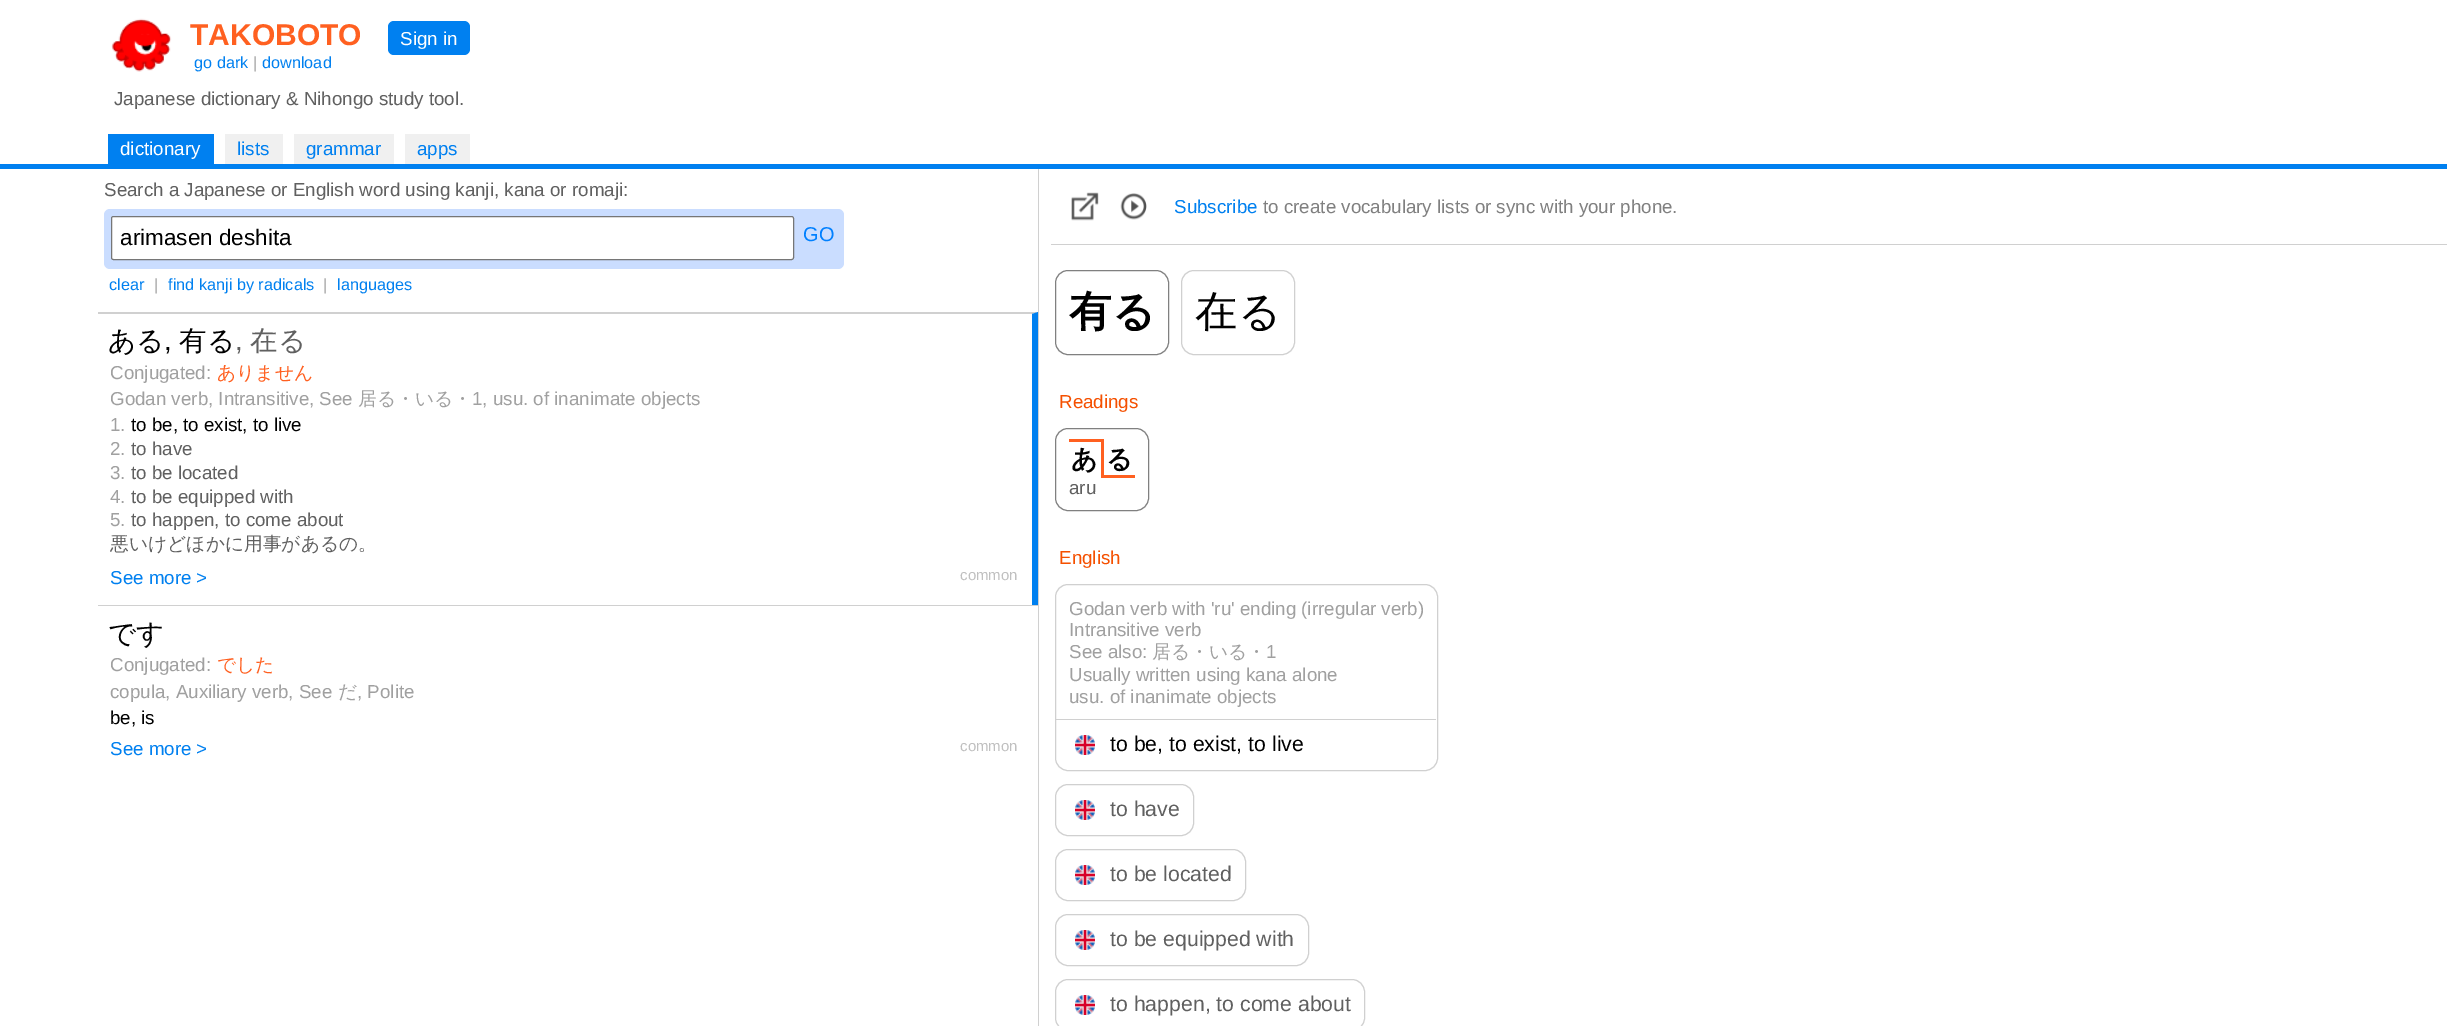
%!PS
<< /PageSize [2447 1032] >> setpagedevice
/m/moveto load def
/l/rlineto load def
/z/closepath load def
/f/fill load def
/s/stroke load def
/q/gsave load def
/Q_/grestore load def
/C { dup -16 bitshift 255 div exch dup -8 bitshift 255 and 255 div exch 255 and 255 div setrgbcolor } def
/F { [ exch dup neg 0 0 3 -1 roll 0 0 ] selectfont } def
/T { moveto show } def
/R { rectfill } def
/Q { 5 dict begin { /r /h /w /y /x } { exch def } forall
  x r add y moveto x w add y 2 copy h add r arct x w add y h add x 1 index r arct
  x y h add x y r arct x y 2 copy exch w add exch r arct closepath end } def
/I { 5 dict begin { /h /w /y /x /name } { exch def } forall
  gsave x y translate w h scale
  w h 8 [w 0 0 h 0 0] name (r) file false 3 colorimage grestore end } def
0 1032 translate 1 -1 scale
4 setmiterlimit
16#FFFFFF C
0 0 2447 1032 R
16#0080F0 C
0 164 2447 5 R
(1.rgb) 111 18 61 54 I
/LiberationSans-Bold 30 F
16#FF6020 C
(TAKOBOTO) 190 45 T
/LiberationSans-Regular 16.25 F
16#0080F0 C
(go dark) 194 68 T
16#A0A0A0 C
(|) 253 68 T
16#0080F0 C
(download) 262 68 T
388 21 82 34 6 Q f
/LiberationSans-Regular 18.75 F
16#FFFFFF C
(Sign in) 400 45 T
16#606060 C
(Japanese dictionary & Nihongo study tool.) 114 105 T
16#0080F0 C
108 134 106 30 R
16#FFFFFF C
(dictionary) 120 155 T
16#F0F0F0 C
225 134 58 30 R
16#0080F0 C
(lists) 237 155 T
16#F0F0F0 C
294 134 100 30 R
16#0080F0 C
(grammar) 306 155 T
16#F0F0F0 C
405 134 65 30 R
16#0080F0 C
(apps) 417 155 T
16#606060 C
(Search a Japanese or English word using kanji, kana or romaji:) 104 196 T
16#CADDFF C
104 209 740 60 6 Q f
16#FFFFFF C
111.5 216.5 682 43 2 Q q f Q_
16#767676 C
s
/LiberationSans-Regular 22.5 F
16#000000 C
(arimasen deshita) 120 245 T
/LiberationSans-Regular 20 F
16#0080FF C
(GO) 803 241 T
/LiberationSans-Regular 16.25 F
16#0080F0 C
(clear) 109 290 T
16#A0A0A0 C
(|) 154 290 T
16#0080F0 C
(find kanji by radicals) 168 290 T
16#A0A0A0 C
(|) 323 290 T
16#0080F0 C
(languages) 337 290 T
16#D0D0D0 C
98 312 m 940 0 l -6 2 l -934 0 l z f
16#0080F0 C
1038 312 m 0 293 l -6 0 l 0 -291 l z f
/WenQuanYiZenHei-Medium 27.5 F
16#000000 C
(ある) 108 350 T
/LiberationSans-Regular 27.5 F
(,) 164 350 T
/WenQuanYiZenHei-Medium 27.5 F
(有る) 179 350 T
/LiberationSans-Regular 27.5 F
16#606060 C
(,) 235 350 T
/WenQuanYiZenHei-Medium 27.5 F
(在る) 250 350 T
/LiberationSans-Regular 18.75 F
16#A0A0A0 C
(Conjugated:) 110 379 T
/WenQuanYiZenHei-Medium 18.75 F
16#FF6020 C
(ありません) 217 379 T
/LiberationSans-Regular 18.75 F
16#A0A0A0 C
(Godan verb, Intransitive, See) 110 405 T
/WenQuanYiZenHei-Medium 18.75 F
(居る・いる・) 358 405 T
/LiberationSans-Regular 18.75 F
(1, usu. of inanimate objects) 472 405 T
(1.) 110 431 T
16#000000 C
(to be, to exist, to live) 131 431 T
16#A0A0A0 C
(2.) 110 455 T
16#606060 C
(to have) 131 455 T
16#A0A0A0 C
(3.) 110 479 T
16#606060 C
(to be located) 131 479 T
16#A0A0A0 C
(4.) 110 503 T
16#606060 C
(to be equipped with) 131 503 T
16#A0A0A0 C
(5.) 110 526 T
16#606060 C
(to happen, to come about) 131 526 T
/WenQuanYiZenHei-Medium 18.75 F
(悪いけどほかに用事があるの。) 110 550 T
/LiberationSans-Regular 18.75 F
16#0080F0 C
(See more >) 110 584 T
/LiberationSans-Regular 15 F
16#C0C0C0 C
(common) 960 580 T
16#D0D0D0 C
98 605 940 1 R
/WenQuanYiZenHei-Medium 27.5 F
16#000000 C
(です) 108 643 T
/LiberationSans-Regular 18.75 F
16#A0A0A0 C
(Conjugated:) 110 671 T
/WenQuanYiZenHei-Medium 18.75 F
16#FF6020 C
(でした) 217 671 T
/LiberationSans-Regular 18.75 F
16#A0A0A0 C
(copula, Auxiliary verb, See) 110 698 T
/WenQuanYiZenHei-Medium 18.75 F
(だ) 338 698 T
/LiberationSans-Regular 18.75 F
(, Polite) 357 698 T
16#000000 C
(be, is) 110 724 T
16#0080F0 C
(See more >) 110 755 T
/LiberationSans-Regular 15 F
16#C0C0C0 C
(common) 960 751 T
16#D0D0D0 C
1038 169 1 857 R
1051 244 1396 1 R
(2.rgb) 1071 192 28 29 I
(3.rgb) 1120 193 27 27 I
/LiberationSans-Regular 18.75 F
16#0080F0 C
(Subscribe) 1174 213 T
16#808080 C
(to create vocabulary lists or sync with your phone.) 1263 213 T
1055.5 270.5 113 84 12.5 Q s
/WenQuanYiZenHei-Bold 42.5 F
16#000000 C
(有る) 1069 326 T
16#D0D0D0 C
1181.5 270.5 113 84 12.5 Q s
/WenQuanYiZenHei-Medium 42.5 F
16#000000 C
(在る) 1195 326 T
/LiberationSans-Regular 18.75 F
16#F55000 C
(Readings) 1059 408 T
16#808080 C
1055.5 428.5 93 82 12.5 Q s
/WenQuanYiZenHei-Bold 26 F
16#000000 C
(あ) 1071 468 T
16#FF6020 C
1069 439 35 3 R
16#000000 C
(る) 1106 468 T
16#FF6020 C
1101 439 3 39 R
1104 475 31 3 R
/LiberationSans-Regular 18.75 F
16#606060 C
(aru) 1069 494 T
16#F55000 C
(English) 1059 564 T
16#D0D0D0 C
1055.5 584.5 382 186 12.5 Q s
1056 719 380 1 R
16#A0A0A0 C
(Godan verb with 'ru' ending \(irregular verb\)) 1069 615 T
(Intransitive verb) 1069 636 T
(See also:) 1069 658 T
/WenQuanYiZenHei-Medium 18.75 F
(居る・いる・) 1152 658 T
/LiberationSans-Regular 18.75 F
(1) 1266 658 T
(Usually written using kana alone) 1069 681 T
(usu. of inanimate objects) 1069 703 T
(4.rgb) 1075 735 20 20 I
/LiberationSans-Regular 21.25 F
16#000000 C
(to be, to exist, to live) 1110 751 T
16#D0D0D0 C
1055.5 784.5 138 51 12.5 Q s
(4.rgb) 1075 800 20 20 I
16#606060 C
(to have) 1110 816 T
16#D0D0D0 C
1055.5 849.5 190 51 12.5 Q s
(4.rgb) 1075 865 20 20 I
16#606060 C
(to be located) 1110 881 T
16#D0D0D0 C
1055.5 914.5 253 51 12.5 Q s
(4.rgb) 1075 930 20 20 I
16#606060 C
(to be equipped with) 1110 946 T
q
1039 169 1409 857 rectclip
16#D0D0D0 C
1055.5 979.5 309 51 12.5 Q s
Q_
(4.rgb) 1075 995 20 20 I
(to happen, to come about) 1110 1011 T
showpage
